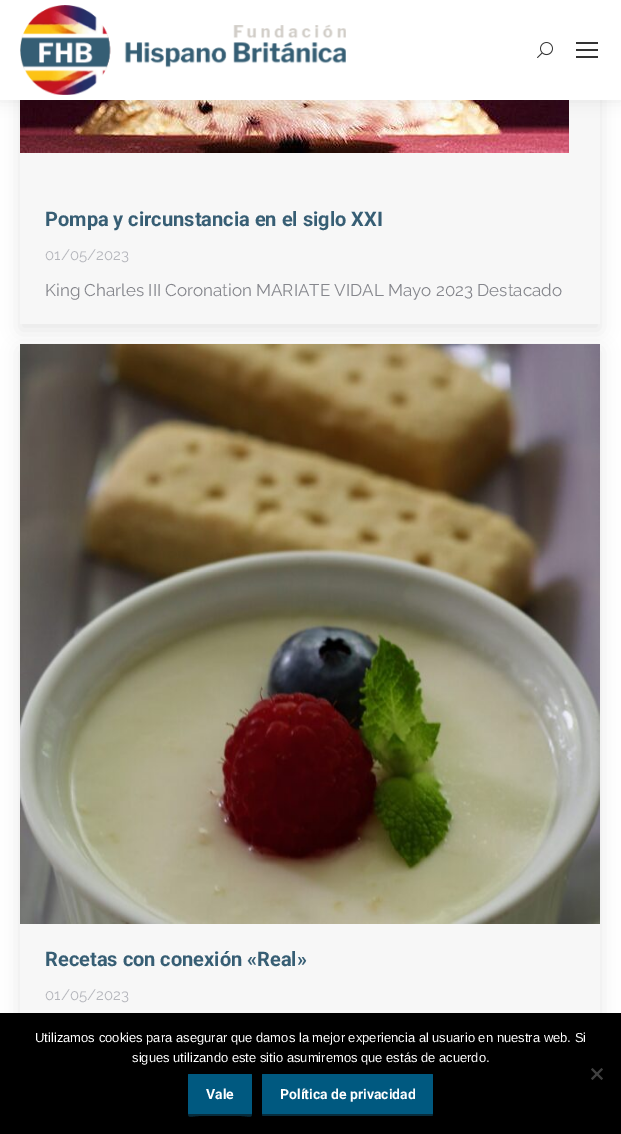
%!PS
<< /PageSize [621 1134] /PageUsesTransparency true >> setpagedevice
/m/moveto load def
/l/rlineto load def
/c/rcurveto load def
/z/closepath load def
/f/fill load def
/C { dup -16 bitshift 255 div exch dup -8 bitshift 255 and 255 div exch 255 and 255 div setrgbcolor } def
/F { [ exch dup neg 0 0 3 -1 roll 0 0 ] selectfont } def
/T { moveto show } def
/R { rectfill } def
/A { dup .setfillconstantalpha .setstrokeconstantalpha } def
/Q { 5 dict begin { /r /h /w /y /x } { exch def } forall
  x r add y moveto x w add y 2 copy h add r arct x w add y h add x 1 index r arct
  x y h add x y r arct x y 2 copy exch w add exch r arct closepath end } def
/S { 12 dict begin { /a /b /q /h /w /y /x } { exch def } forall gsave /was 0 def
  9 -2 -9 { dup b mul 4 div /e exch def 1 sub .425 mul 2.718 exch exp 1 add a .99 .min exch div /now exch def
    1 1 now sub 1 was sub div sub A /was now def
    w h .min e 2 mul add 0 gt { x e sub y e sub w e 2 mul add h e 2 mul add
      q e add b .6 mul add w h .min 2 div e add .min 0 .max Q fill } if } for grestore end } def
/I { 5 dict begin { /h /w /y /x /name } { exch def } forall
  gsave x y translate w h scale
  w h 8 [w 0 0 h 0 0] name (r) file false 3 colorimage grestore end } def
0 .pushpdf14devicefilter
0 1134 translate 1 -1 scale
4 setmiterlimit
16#FFFFFF C
0 0 621 1134 R
16#000000 C
20 -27 580 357 0 9 .1 S
16#F7F7F7 C
20 100 580 224 R
(3.rgb) 20 100 549 53 I
16#000000 C
-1 -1 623 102 0 7.5 .07 S
16#FFFFFF C
0 0 621 100 R
(1.rgb) 20 5 326 90 I
(2.rgb) 537 42 16 16 I
16#333333 C
576 42 22 2 R
576 49 22 2 R
576 56 22 2 R
/Roboto-Bold 20 F
16#375E74 C
(Pompa y circunstancia en el siglo XXI) 45 226 T
/Raleway-Regular 15 F
16#B4B5BB C
(01/05/2023) 45 260 T
/Raleway-Regular 17 F
16#85868C C
(King Charles III Coronation MARIATE VIDAL Mayo 2023 Destacado) 45 296 T
16#000000 C
20 350 580 720 0 9 .1 S
16#F7F7F7 C
20 924 580 89 R
(4.rgb) 20 344 580 580 I
/Roboto-Bold 20 F
16#375E74 C
(Recetas con conexión «Real») 45 966 T
/Raleway-Regular 15 F
16#B4B5BB C
(01/05/2023) 45 1000 T
16#000000 C
0 1013 621 121 R
/LiberationSans-Regular 13 F
16#FFFFFF C
(Utilizamos cookies para asegurar que damos la mejor experiencia al usuario en nuestra web. Si) 35 1042 T
(sigues utilizando este sitio asumiremos que estás de acuerdo.) 132 1062 T
16#404040 C
601.5 1068 m 1.5 1.5 l -10.5 10.5 l -1.5 -1.5 l z f
591 1069.5 m 1.5 -1.5 l 10.5 10.5 l -1.5 1.5 l z f
16#072C3C C
188 1113 m 0 6 3 3 11 3 c 42 0 l 8 0 11 3 11 -3 c -1 1 l -62 0 l z f
16#005980 C
188 1074 64 40 1 Q f
/Roboto-Bold 14 F
16#FFFFFF C
(Vale) 206 1099 T
16#072C3C C
262 1113 m 0 1 0 3 1 3 c 169 0 l 1 0 1 -2 1 -3 c -1 1 l -169 0 l z f
16#005980 C
262 1074 171 40 1 Q f
16#FFFFFF C
(Política de privacidad) 280 1099 T
.poppdf14devicefilter showpage
